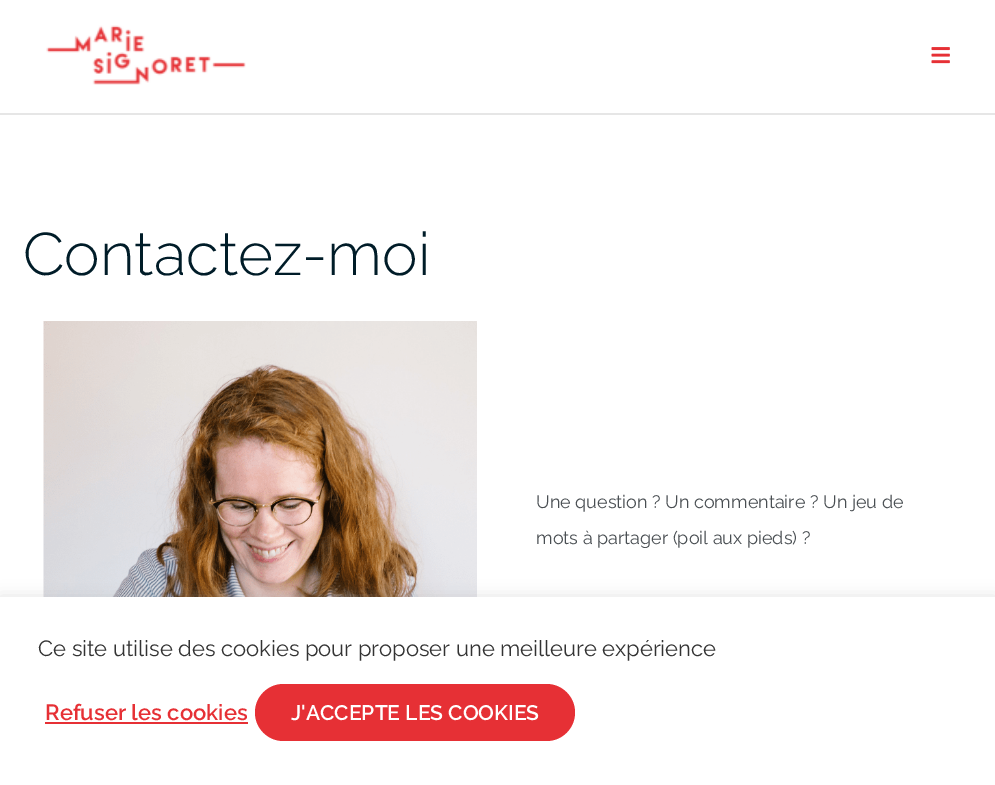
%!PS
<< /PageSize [995 785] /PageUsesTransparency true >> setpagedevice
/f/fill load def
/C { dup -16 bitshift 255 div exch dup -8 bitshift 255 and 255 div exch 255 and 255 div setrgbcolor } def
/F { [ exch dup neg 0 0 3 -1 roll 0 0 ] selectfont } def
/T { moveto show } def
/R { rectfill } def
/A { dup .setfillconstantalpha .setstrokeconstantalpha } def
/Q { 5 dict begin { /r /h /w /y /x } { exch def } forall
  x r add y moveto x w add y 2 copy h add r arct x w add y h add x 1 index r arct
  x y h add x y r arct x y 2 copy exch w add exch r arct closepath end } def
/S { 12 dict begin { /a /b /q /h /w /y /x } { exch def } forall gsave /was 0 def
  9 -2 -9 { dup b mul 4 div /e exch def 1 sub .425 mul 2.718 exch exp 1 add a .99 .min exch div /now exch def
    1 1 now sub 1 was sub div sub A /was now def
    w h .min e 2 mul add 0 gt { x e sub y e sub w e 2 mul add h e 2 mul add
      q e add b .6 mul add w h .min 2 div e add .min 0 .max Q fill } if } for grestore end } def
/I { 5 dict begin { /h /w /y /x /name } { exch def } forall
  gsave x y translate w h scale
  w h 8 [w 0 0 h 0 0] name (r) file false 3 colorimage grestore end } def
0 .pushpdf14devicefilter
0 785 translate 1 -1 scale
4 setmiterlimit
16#FFFFFF C
0 0 995 785 R
16#E6E6E6 C
0 113 995 2 R
(1.rgb) 46 25 200 60 I
(2.rgb) 931 47 19 17 I
/Raleway-Light 60 F
16#001C28 C
(Contactez-moi) 23 275 T
(3.rgb) 43 321 434 276 I
/Raleway-Regular 18 F
16#494E52 C
(Une question ? Un commentaire ? Un jeu de) 536 508 T
(mots à partager \(poil aux pieds\) ?) 536 544 T
16#ACABAB C
0 596 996 189 0 7.5 .3 S
16#FFFFFF C
0 597 995 188 R
/Raleway-Regular 22 F
16#333333 C
(Ce site utilise des cookies pour proposer une meilleure expérience) 38 656 T
/Raleway-SemiBold 22 F
16#E63035 C
(Refuser les cookies) 45 720 T
45 722 203 2 R
255 684 320 57 28.5 Q f
/Raleway-SemiBold 21 F
16#FFFFFF C
(J'ACCEPTE LES COOKIES) 291 720 T
.poppdf14devicefilter showpage
